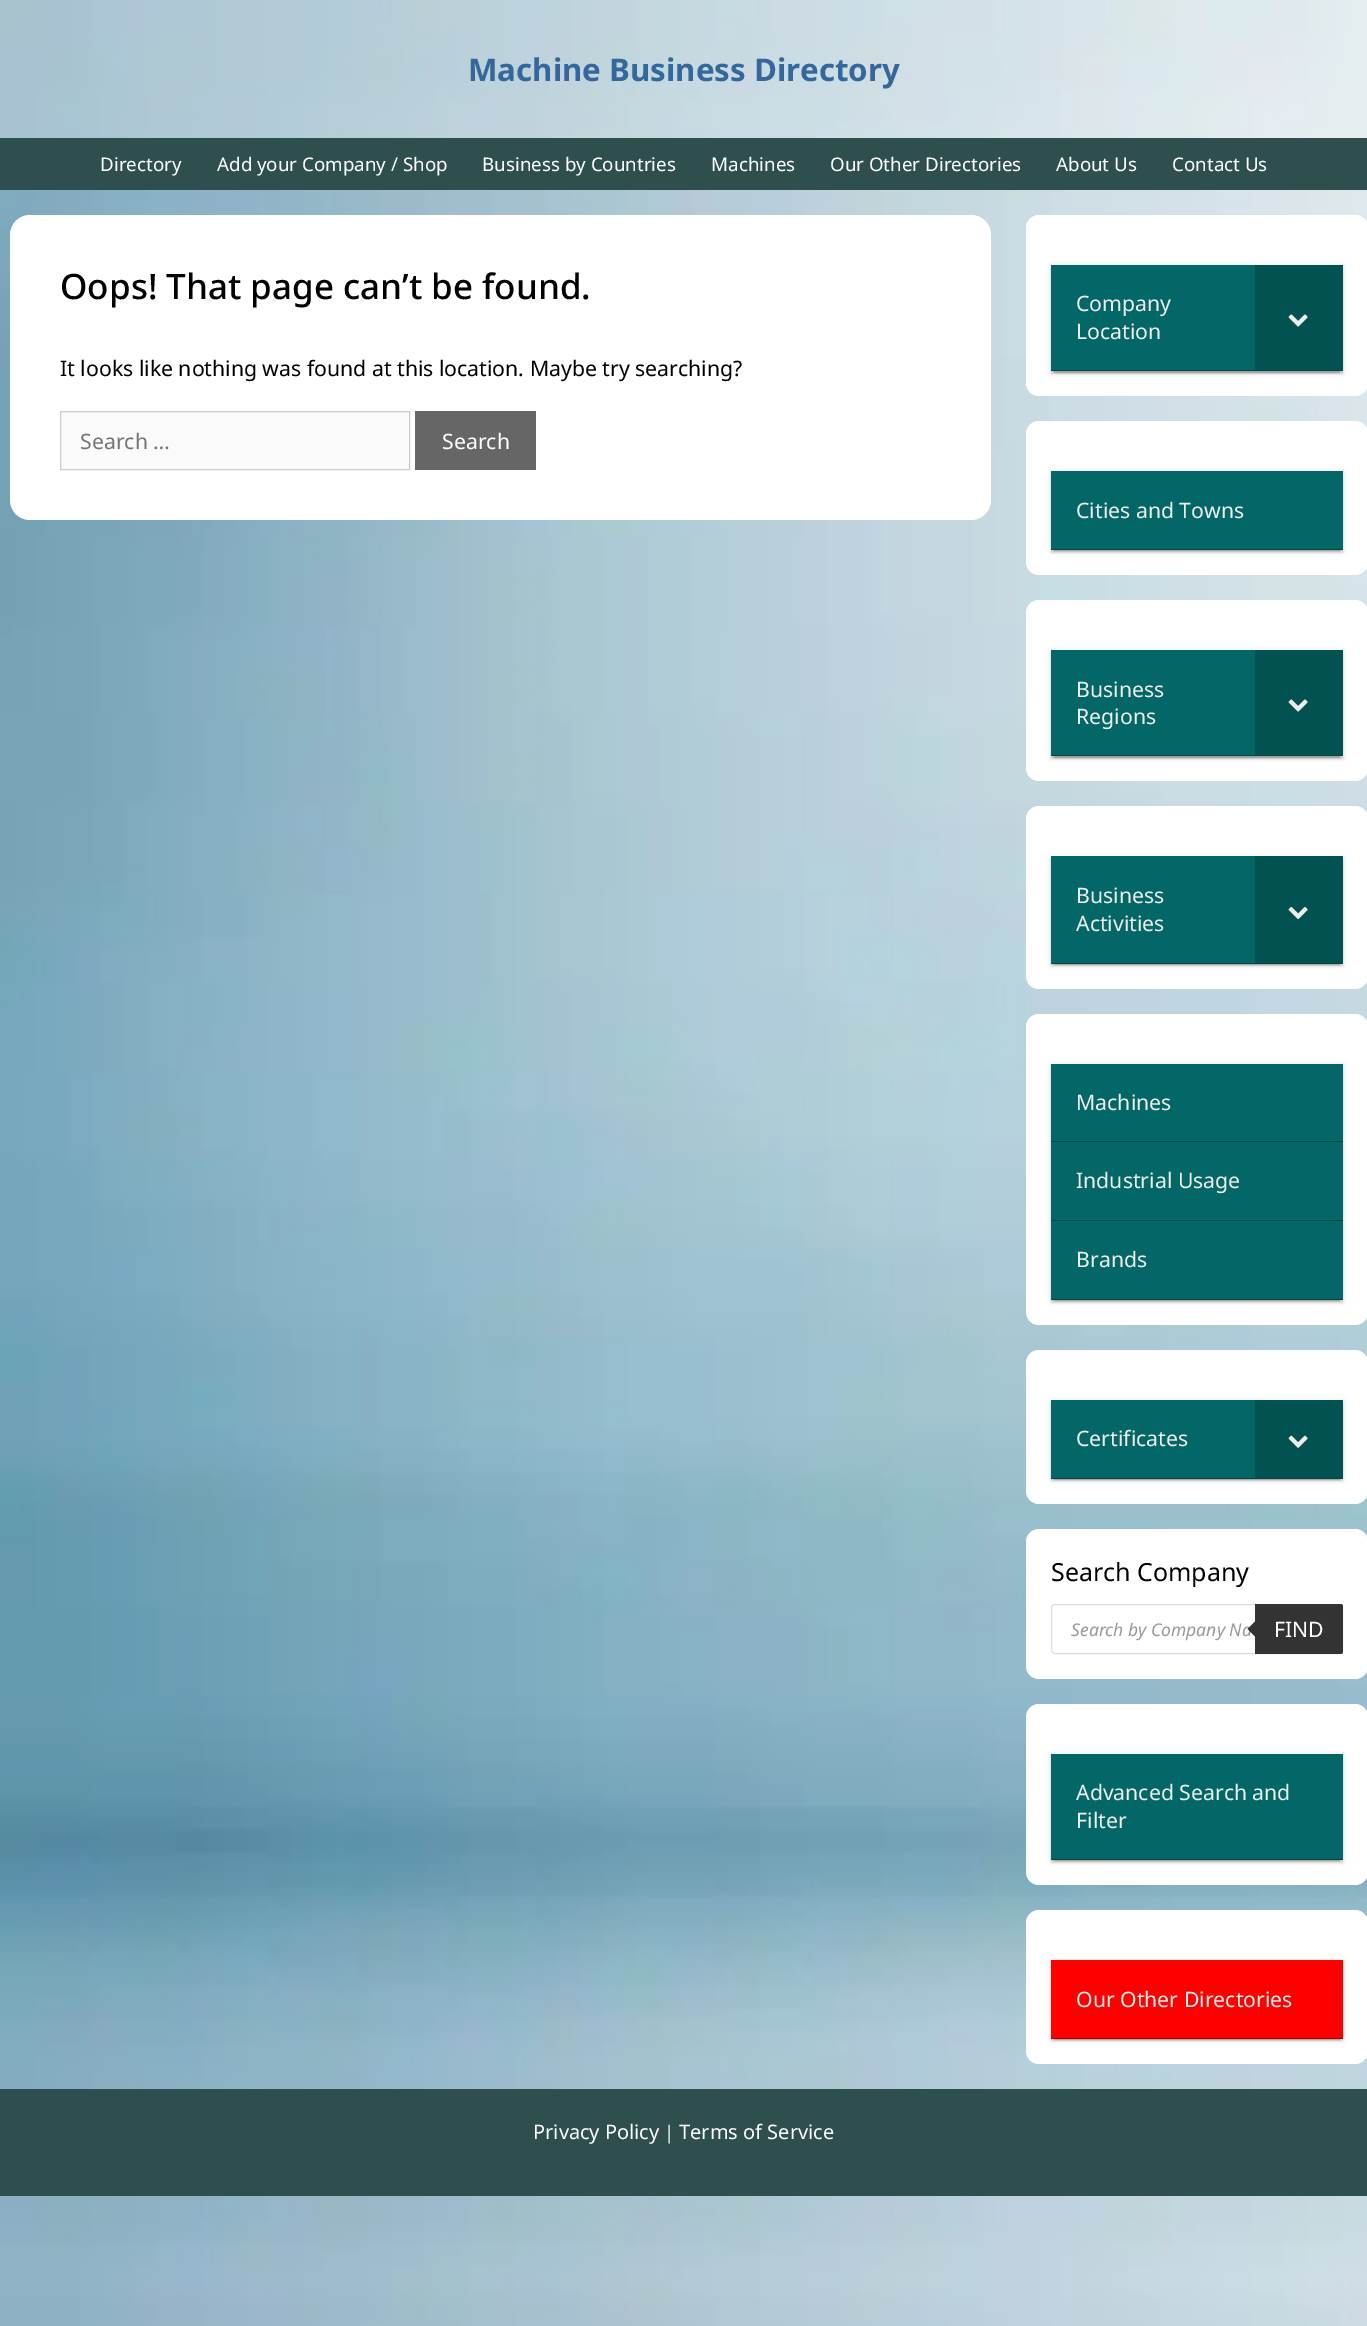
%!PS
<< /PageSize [1367 2326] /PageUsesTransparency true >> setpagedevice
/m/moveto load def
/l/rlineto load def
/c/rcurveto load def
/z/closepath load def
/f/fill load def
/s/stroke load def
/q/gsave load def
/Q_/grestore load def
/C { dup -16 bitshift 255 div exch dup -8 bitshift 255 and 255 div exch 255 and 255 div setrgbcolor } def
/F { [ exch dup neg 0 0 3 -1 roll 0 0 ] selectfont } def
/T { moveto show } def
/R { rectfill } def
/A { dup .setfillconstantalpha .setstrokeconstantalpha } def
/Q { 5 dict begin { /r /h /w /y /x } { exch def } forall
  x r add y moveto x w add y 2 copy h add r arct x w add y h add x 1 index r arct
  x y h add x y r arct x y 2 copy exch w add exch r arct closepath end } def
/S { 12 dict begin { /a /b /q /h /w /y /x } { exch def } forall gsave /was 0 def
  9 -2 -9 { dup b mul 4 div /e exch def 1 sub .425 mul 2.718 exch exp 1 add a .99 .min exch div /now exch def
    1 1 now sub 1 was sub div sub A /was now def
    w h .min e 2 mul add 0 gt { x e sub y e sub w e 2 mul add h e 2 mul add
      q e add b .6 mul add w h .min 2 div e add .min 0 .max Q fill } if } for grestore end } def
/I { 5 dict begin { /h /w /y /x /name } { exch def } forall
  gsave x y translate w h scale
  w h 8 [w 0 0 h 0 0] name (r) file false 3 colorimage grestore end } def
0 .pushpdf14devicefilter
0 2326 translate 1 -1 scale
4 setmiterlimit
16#FFFFFF C
0 0 1367 2326 R
(1.rgb) 0 0 1367 2326 I
0.3 A
0 0 1367 138 R
/NotoSans-Bold 31.25 F
1 A
16#34689C C
(Machine Business Directory) 468 81 T
16#2F4F4F C
0 138 1367 52 R
/NotoSans-Regular 18.75 F
16#FFFFFF C
(Directory) 100 171 T
(Add your Company / Shop) 217 171 T
(Business by Countries) 482 171 T
(Machines) 711 171 T
(Our Other Directories) 830 171 T
(About Us) 1056 171 T
(Contact Us) 1172 171 T
10 215 981 305 20 Q f
/NotoSans-Medium 35 F
16#000000 C
(Oops! That page can’t be found.) 60 299 T
/NotoSans-Regular 21.25 F
(It looks like nothing was found at this location. Maybe try searching?) 60 376 T
16#FAFAFA C
60.5 411.5 m 349 0 l 0 58 l -349 0 l z q f Q_
16#CCCCCC C
s
16#757575 C
(Search …) 80 449 T
16#666666 C
415 411 121 59 R
16#FFFFFF C
(Search) 442 449 T
1026 215 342 181 13 Q f
16#000000 C
1051 266 292 107 0 3 .12 S
1054 271 286 102 0 .5 .2 S
1051 268 292 106 0 1 .14 S
16#046767 C
1051 265 204 105 R
16#034848 C
1051 370 292 1 R
16#EEEEEE C
(Company) 1076 311 T
(Location) 1076 339 T
16#035252 C
1255 265 88 105 R
(2.rgb) 1288 314 20 13 I
16#FFFFFF C
1026 421 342 154 13 Q f
16#000000 C
1051 473 292 78 0 3 .12 S
1054 478 286 73 0 .5 .2 S
1051 474 292 79 0 1 .14 S
16#046767 C
1051 471 292 78 R
16#034848 C
1051 549 292 1 R
16#EEEEEE C
(Cities and Towns) 1076 518 T
16#FFFFFF C
1026 600 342 181 13 Q f
16#000000 C
1051 651 292 107 0 3 .12 S
1054 656 286 102 0 .5 .2 S
1051 653 292 106 0 1 .14 S
16#046767 C
1051 650 204 105 R
16#034848 C
1051 755 292 1 R
16#EEEEEE C
(Business) 1076 697 T
(Regions) 1076 724 T
16#035252 C
1255 650 88 105 R
(2.rgb) 1288 699 20 13 I
16#FFFFFF C
1026 806 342 183 13 Q f
16#000000 C
1051 858 292 107 0 3 .12 S
1054 863 286 102 0 .5 .2 S
1051 859 292 107 0 1 .14 S
16#046767 C
1051 856 204 107 R
16#034848 C
1051 963 292 1 R
16#EEEEEE C
(Business) 1076 903 T
(Activities) 1076 931 T
16#035252 C
1255 856 88 107 R
(3.rgb) 1288 906 20 14 I
16#FFFFFF C
1026 1014 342 311 13 Q f
16#000000 C
1051 1065 292 236 0 3 .12 S
1054 1070 286 231 0 .5 .2 S
1051 1066 292 237 0 1 .14 S
16#046767 C
1051 1064 292 235 R
16#034848 C
1051 1141 292 1 R
16#EEEEEE C
(Machines) 1076 1110 T
16#034848 C
1051 1220 292 1 R
16#EEEEEE C
(Industrial Usage) 1076 1188 T
16#034848 C
1051 1299 292 1 R
16#EEEEEE C
(Brands) 1076 1267 T
16#FFFFFF C
1026 1350 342 154 13 Q f
16#000000 C
1051 1401 292 79 0 3 .12 S
1054 1406 286 74 0 .5 .2 S
1051 1403 292 78 0 1 .14 S
16#046767 C
1051 1400 204 78 R
16#034848 C
1051 1478 292 1 R
16#EEEEEE C
(Certificates) 1076 1446 T
16#035252 C
1255 1400 88 78 R
(4.rgb) 1288 1435 20 13 I
16#FFFFFF C
1026 1529 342 150 13 Q f
/NotoSans-Regular 25 F
16#000000 C
(Search Company) 1051 1581 T
16#DDDDDD C
1051.5 1604.5 291 49 3.5 Q s
/NotoSans-Italic 17.5 F
16#999999 C
(Search by Company Na) 1071 1636 T
16#333333 C
1255 1604 m 85.5 0 l 1.5 0 2.5 1 2.5 2.5 c 0 45 l 0 1.5 -1 2.5 -2.5 2.5 c -85.5 0 l z f
1257.5 1619 m 0 20 l -10 -10 l z f
/NotoSans-Regular 21.25 F
16#FFFFFF C
(FIND) 1274 1637 T
1026 1704 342 181 13 Q f
16#000000 C
1051 1755 292 106 0 3 .12 S
1054 1760 286 101 0 .5 .2 S
1051 1756 292 107 0 1 .14 S
16#046767 C
1051 1754 292 105 R
16#034848 C
1051 1859 292 1 R
16#EEEEEE C
(Advanced Search and) 1076 1800 T
(Filter) 1076 1828 T
16#FFFFFF C
1026 1910 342 154 13 Q f
16#000000 C
1051 1961 292 79 0 3 .12 S
1054 1966 286 74 0 .5 .2 S
1051 1963 292 78 0 1 .14 S
16#FF0000 C
1051 1960 292 78 R
16#B30000 C
1051 2038 292 1 R
16#EEEEEE C
(Our Other Directories) 1076 2007 T
16#2F4F4F C
0 2089 1367 107 R
/NotoSans-Regular 20 F
16#FFFFFF C
(Privacy Policy) 533 2139 T
/NotoSans-Regular 18.75 F
(|) 664 2139 T
/NotoSans-Regular 20 F
(Terms of Service) 679 2139 T
.poppdf14devicefilter showpage
